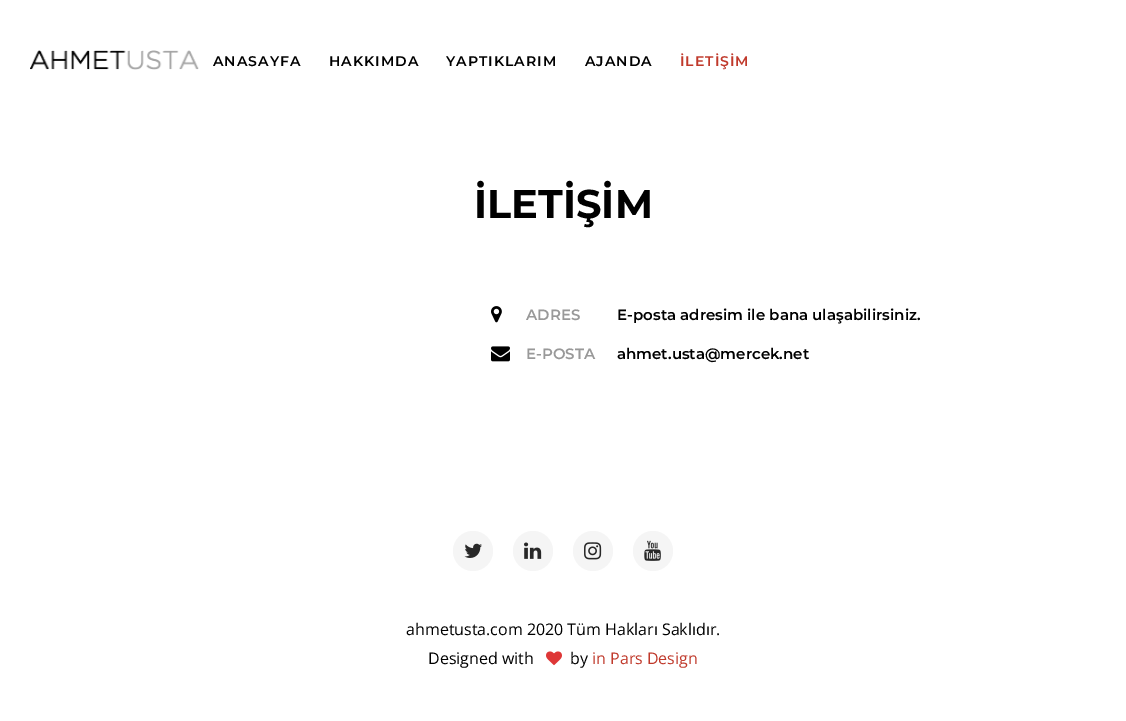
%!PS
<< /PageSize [1126 721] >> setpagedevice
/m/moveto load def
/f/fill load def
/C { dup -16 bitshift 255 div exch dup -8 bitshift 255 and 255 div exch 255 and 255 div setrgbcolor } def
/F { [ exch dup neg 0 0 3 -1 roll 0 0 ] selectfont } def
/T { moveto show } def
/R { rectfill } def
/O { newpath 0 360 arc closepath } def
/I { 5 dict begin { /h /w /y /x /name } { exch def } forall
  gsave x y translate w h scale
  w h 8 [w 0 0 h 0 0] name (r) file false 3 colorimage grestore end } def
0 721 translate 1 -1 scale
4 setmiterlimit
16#FFFFFF C
0 0 1126 721 R
(1.rgb) 30 50 169 20 I
/Montserrat-SemiBold 14 F
16#000000 C
213 66 m 1 0 (ANASAYFA) ashow
329 66 m 1 0 (HAKKIMDA) ashow
446 66 m 1 0 (YAPTIKLARIM) ashow
585 66 m 1 0 (AJANDA) ashow
16#C0392B C
680 66 m 1 0 (İLETİŞİM) ashow
/Montserrat-Bold 40 F
16#000000 C
(İLETİŞİM) 474 218 T
(2.rgb) 491 306 11 17 I
/Montserrat-SemiBold 15 F
16#999999 C
(ADRES) 526 320 T
16#000000 C
(E-posta adresim ile bana ulaşabilirsiniz.) 617 320 T
(3.rgb) 491 346 19 16 I
16#999999 C
(E-POSTA) 526 359 T
16#000000 C
(ahmet.usta@mercek.net) 617 359 T
16#F5F5F5 C
473 551 20 O f
(4.rgb) 464 543 18 15 I
533 551 20 O f
(5.rgb) 524 542 18 17 I
593 551 20 O f
(6.rgb) 584 542 18 18 I
653 551 20 O f
(7.rgb) 644 540 17 21 I
/OpenSans-Regular 16 F
16#000000 C
(ahmetusta.com 2020 Tüm Hakları Saklıdır.) 406 635 T
(Designed with) 428 664 T
(8.rgb) 546 651 16 15 I
(by) 570 664 T
16#C0392B C
(in Pars Design) 592 664 T
showpage
